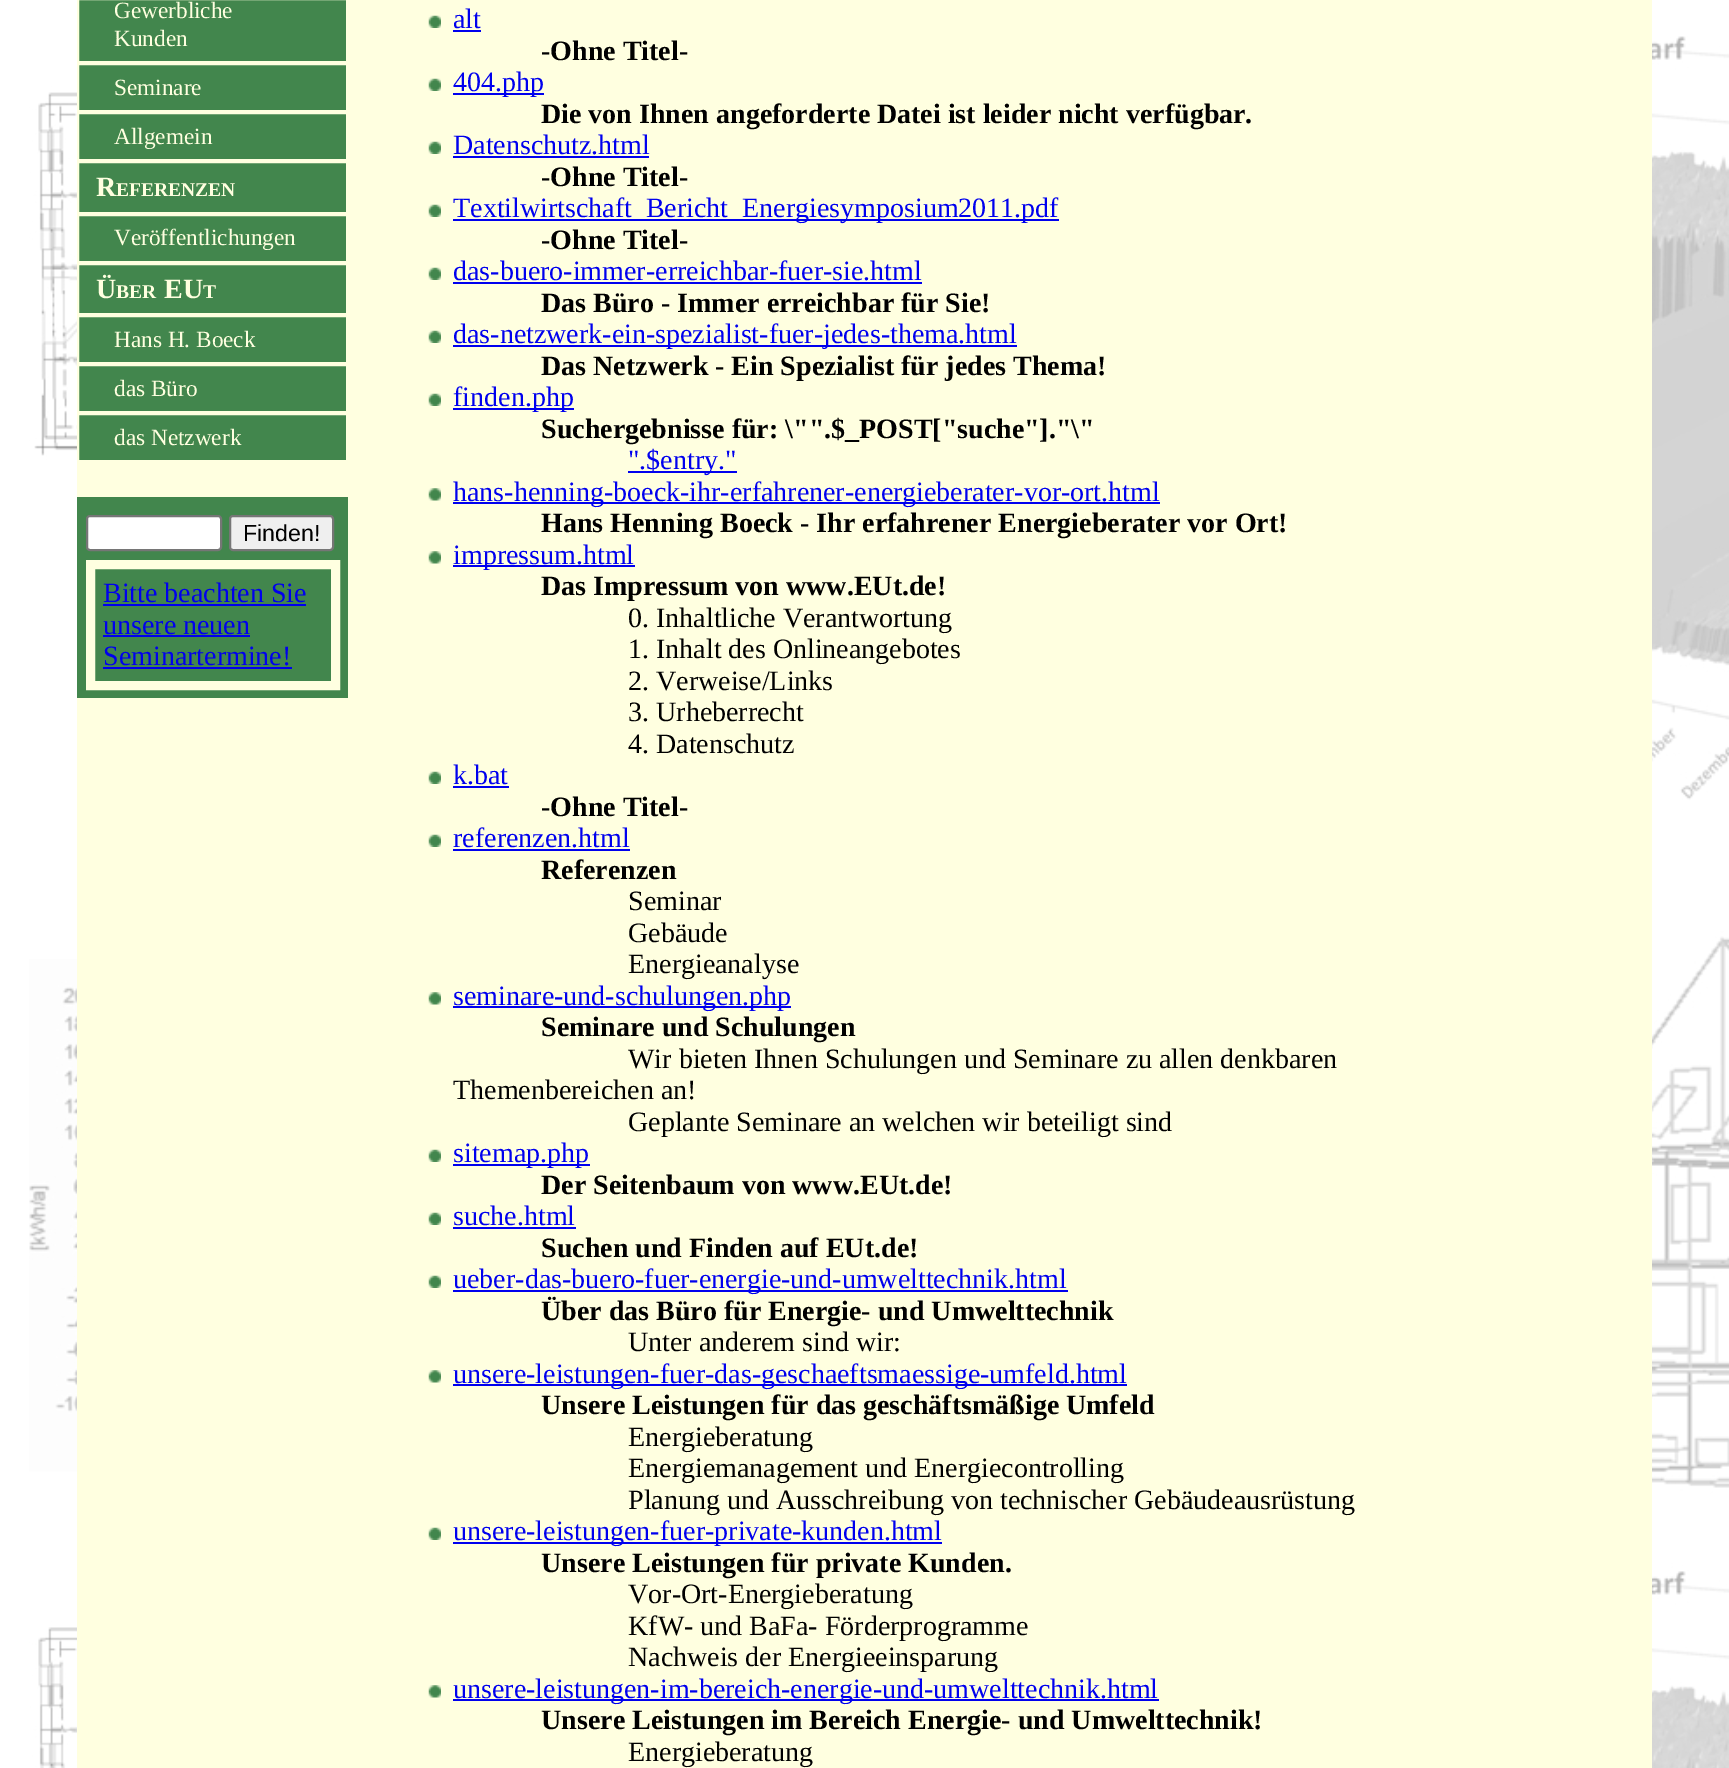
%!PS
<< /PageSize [1729 1768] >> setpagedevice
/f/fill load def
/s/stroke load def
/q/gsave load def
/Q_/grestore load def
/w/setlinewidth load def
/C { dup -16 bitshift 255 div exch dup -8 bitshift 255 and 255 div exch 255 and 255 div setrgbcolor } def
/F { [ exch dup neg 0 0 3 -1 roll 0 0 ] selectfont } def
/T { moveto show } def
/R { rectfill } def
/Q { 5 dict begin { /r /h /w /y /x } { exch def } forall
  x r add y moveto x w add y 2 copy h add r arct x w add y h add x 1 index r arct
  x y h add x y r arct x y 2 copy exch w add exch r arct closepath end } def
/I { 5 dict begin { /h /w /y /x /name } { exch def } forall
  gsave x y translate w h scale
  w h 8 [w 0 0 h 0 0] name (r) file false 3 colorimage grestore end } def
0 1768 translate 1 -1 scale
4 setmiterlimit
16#FFFFFF C
0 0 1729 1768 R
(1.rgb) 29 36 1700 1732 I
16#FFFFE0 C
77 0 1575 1768 R
16#42864D C
77 0 271 698 R
16#FFFFE0 C
2 w
78 -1 269 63 rectstroke
/LiberationSerif-Regular 23.25 F
(Gewerbliche) 114 18 T
(Kunden) 114 46 T
78 64 269 47 rectstroke
(Seminare) 114 95 T
78 113 269 47 rectstroke
(Allgemein) 114 144 T
78 162 269 51 rectstroke
/LiberationSerif-Bold 28 F
(R) 96 196 T
/LiberationSerif-Bold 19.5 F
(EFERENZEN) 116 196 T
78 215 269 47 rectstroke
/LiberationSerif-Regular 23.25 F
(Veröffentlichungen) 114 245 T
78 264 269 50 rectstroke
/LiberationSerif-Bold 28 F
(Ü) 96 298 T
/LiberationSerif-Bold 19.5 F
(BER) 116 298 T
/LiberationSerif-Bold 28 F
(EU) 164 298 T
/LiberationSerif-Bold 19.5 F
(T) 203 298 T
78 316 269 47 rectstroke
/LiberationSerif-Regular 23.25 F
(Hans H. Boeck) 114 347 T
78 365 269 47 rectstroke
(das Büro) 114 396 T
78 414 269 47 rectstroke
(das Netzwerk) 114 445 T
77 462 271 35 R
16#FFFFFF C
87 516 134 34 3 Q q f Q_
16#767676 C
s
16#EFEFEF C
230 516 103 34 3 Q q f Q_
16#767676 C
s
/LiberationSans-Regular 23.25 F
16#000000 C
(Finden!) 243 541 T
16#FFFFE0 C
9 w
90.5 564.5 245 121 rectstroke
/LiberationSerif-Regular 28 F
16#0000EE C
(Bitte beachten Sie) 103 602 T
103 604 203 2 R
(unsere neuen) 103 634 T
103 635 147 2 R
(Seminartermine!) 103 665 T
103 667 189 2 R
(2.rgb) 428 15 13 13 I
(alt) 453 28 T
453 30 28 2 R
/LiberationSerif-Bold 28 F
16#000000 C
(-Ohne Titel-) 541 60 T
(2.rgb) 428 78 13 13 I
16#0000EE C
453 93 91 2 R
/LiberationSerif-Regular 28 F
(404.php) 453 91 T
/LiberationSerif-Bold 28 F
16#000000 C
(Die von Ihnen angeforderte Datei ist leider nicht verfügbar.) 541 123 T
(2.rgb) 428 141 13 13 I
/LiberationSerif-Regular 28 F
16#0000EE C
(Datenschutz.html) 453 154 T
453 156 196 2 R
/LiberationSerif-Bold 28 F
16#000000 C
(-Ohne Titel-) 541 186 T
(2.rgb) 428 204 13 13 I
16#0000EE C
453 219 606 2 R
/LiberationSerif-Regular 28 F
(Textilwirtschaft_Bericht_Energiesymposium2011.pdf) 453 217 T
/LiberationSerif-Bold 28 F
16#000000 C
(-Ohne Titel-) 541 249 T
(2.rgb) 428 267 13 13 I
/LiberationSerif-Regular 28 F
16#0000EE C
(das-buero-immer-erreichbar-fuer-sie.html) 453 280 T
453 282 469 2 R
/LiberationSerif-Bold 28 F
16#000000 C
(Das Büro - Immer erreichbar für Sie!) 541 312 T
(2.rgb) 428 330 13 13 I
16#0000EE C
453 345 564 2 R
/LiberationSerif-Regular 28 F
(das-netzwerk-ein-spezialist-fuer-jedes-thema.html) 453 343 T
/LiberationSerif-Bold 28 F
16#000000 C
(Das Netzwerk - Ein Spezialist für jedes Thema!) 541 375 T
(2.rgb) 428 393 13 13 I
16#0000EE C
453 408 121 2 R
/LiberationSerif-Regular 28 F
(finden.php) 453 406 T
/LiberationSerif-Bold 28 F
16#000000 C
(Suchergebnisse für: \\"".$_POST["suche"]."\\") 541 438 T
16#0000EE C
628 471 109 2 R
/LiberationSerif-Regular 28 F
(".$entry.") 628 469 T
(3.rgb) 428 488 13 13 I
453 502 707 2 R
(hans-henning-boeck-ihr-erfahrener-energieberater-vor-ort.html) 453 501 T
/LiberationSerif-Bold 28 F
16#000000 C
(Hans Henning Boeck - Ihr erfahrener Energieberater vor Ort!) 541 532 T
(3.rgb) 428 551 13 13 I
16#0000EE C
453 565 182 2 R
/LiberationSerif-Regular 28 F
(impressum.html) 453 564 T
/LiberationSerif-Bold 28 F
16#000000 C
(Das Impressum von www.EUt.de!) 541 595 T
/LiberationSerif-Regular 28 F
(0. Inhaltliche Verantwortung) 628 627 T
(1. Inhalt des Onlineangebotes) 628 658 T
(2. Verweise/Links) 628 690 T
(3. Urheberrecht) 628 721 T
(4. Datenschutz) 628 753 T
(2.rgb) 428 771 13 13 I
16#0000EE C
(k.bat) 453 784 T
453 786 56 2 R
/LiberationSerif-Bold 28 F
16#000000 C
(-Ohne Titel-) 541 816 T
(2.rgb) 428 834 13 13 I
/LiberationSerif-Regular 28 F
16#0000EE C
(referenzen.html) 453 847 T
453 849 177 2 R
/LiberationSerif-Bold 28 F
16#000000 C
(Referenzen) 541 879 T
/LiberationSerif-Regular 28 F
(Seminar) 628 910 T
(Gebäude) 628 942 T
(Energieanalyse) 628 973 T
(3.rgb) 428 992 13 13 I
16#0000EE C
453 1006 338 2 R
(seminare-und-schulungen.php) 453 1005 T
/LiberationSerif-Bold 28 F
16#000000 C
(Seminare und Schulungen) 541 1036 T
/LiberationSerif-Regular 28 F
(Wir bieten Ihnen Schulungen und Seminare zu allen denkbaren) 628 1068 T
(Themenbereichen an!) 453 1099 T
(Geplante Seminare an welchen wir beteiligt sind) 628 1131 T
(2.rgb) 428 1149 13 13 I
16#0000EE C
453 1164 137 2 R
(sitemap.php) 453 1162 T
/LiberationSerif-Bold 28 F
16#000000 C
(Der Seitenbaum von www.EUt.de!) 541 1194 T
(2.rgb) 428 1212 13 13 I
/LiberationSerif-Regular 28 F
16#0000EE C
(suche.html) 453 1225 T
453 1227 123 2 R
/LiberationSerif-Bold 28 F
16#000000 C
(Suchen und Finden auf EUt.de!) 541 1257 T
(2.rgb) 428 1275 13 13 I
16#0000EE C
453 1290 615 2 R
/LiberationSerif-Regular 28 F
(ueber-das-buero-fuer-energie-und-umwelttechnik.html) 453 1288 T
/LiberationSerif-Bold 28 F
16#000000 C
(Über das Büro für Energie- und Umwelttechnik) 541 1320 T
/LiberationSerif-Regular 28 F
(Unter anderem sind wir:) 628 1351 T
(3.rgb) 428 1370 13 13 I
16#0000EE C
453 1384 674 2 R
(unsere-leistungen-fuer-das-geschaeftsmaessige-umfeld.html) 453 1383 T
/LiberationSerif-Bold 28 F
16#000000 C
(Unsere Leistungen für das geschäftsmäßige Umfeld) 541 1414 T
/LiberationSerif-Regular 28 F
(Energieberatung) 628 1446 T
(Energiemanagement und Energiecontrolling) 628 1477 T
(Planung und Ausschreibung von technischer Gebäudeausrüstung) 628 1509 T
(4.rgb) 428 1527 13 13 I
16#0000EE C
453 1542 489 2 R
(unsere-leistungen-fuer-private-kunden.html) 453 1540 T
/LiberationSerif-Bold 28 F
16#000000 C
(Unsere Leistungen für private Kunden.) 541 1572 T
/LiberationSerif-Regular 28 F
(Vor-Ort-Energieberatung) 628 1603 T
(KfW- und BaFa- Förderprogramme) 628 1635 T
(Nachweis der Energieeinsparung) 628 1666 T
(3.rgb) 428 1685 13 13 I
16#0000EE C
453 1699 706 2 R
(unsere-leistungen-im-bereich-energie-und-umwelttechnik.html) 453 1698 T
/LiberationSerif-Bold 28 F
16#000000 C
(Unsere Leistungen im Bereich Energie- und Umwelttechnik!) 541 1729 T
/LiberationSerif-Regular 28 F
(Energieberatung) 628 1761 T
showpage
